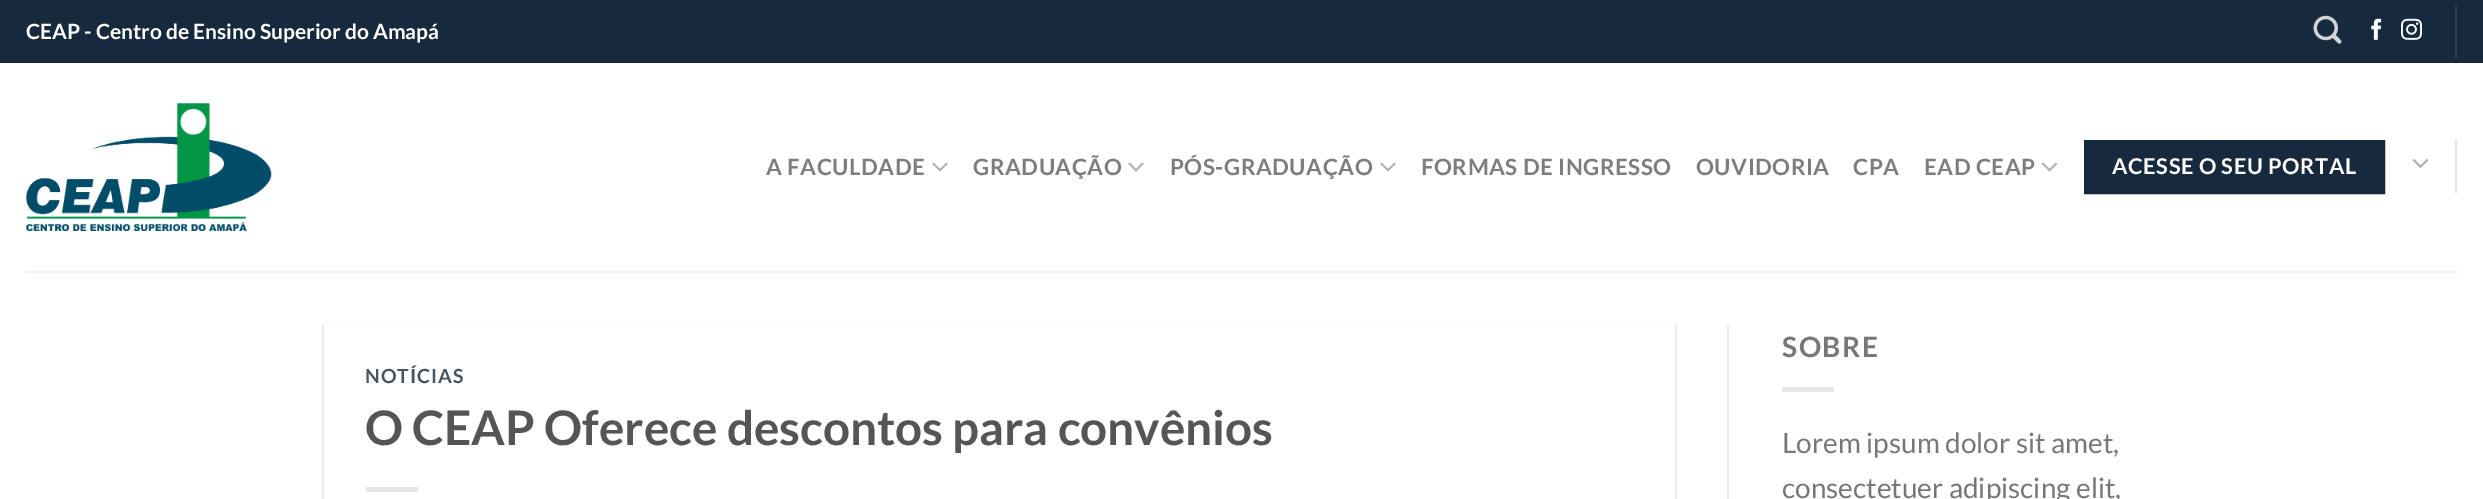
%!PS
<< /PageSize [2483 499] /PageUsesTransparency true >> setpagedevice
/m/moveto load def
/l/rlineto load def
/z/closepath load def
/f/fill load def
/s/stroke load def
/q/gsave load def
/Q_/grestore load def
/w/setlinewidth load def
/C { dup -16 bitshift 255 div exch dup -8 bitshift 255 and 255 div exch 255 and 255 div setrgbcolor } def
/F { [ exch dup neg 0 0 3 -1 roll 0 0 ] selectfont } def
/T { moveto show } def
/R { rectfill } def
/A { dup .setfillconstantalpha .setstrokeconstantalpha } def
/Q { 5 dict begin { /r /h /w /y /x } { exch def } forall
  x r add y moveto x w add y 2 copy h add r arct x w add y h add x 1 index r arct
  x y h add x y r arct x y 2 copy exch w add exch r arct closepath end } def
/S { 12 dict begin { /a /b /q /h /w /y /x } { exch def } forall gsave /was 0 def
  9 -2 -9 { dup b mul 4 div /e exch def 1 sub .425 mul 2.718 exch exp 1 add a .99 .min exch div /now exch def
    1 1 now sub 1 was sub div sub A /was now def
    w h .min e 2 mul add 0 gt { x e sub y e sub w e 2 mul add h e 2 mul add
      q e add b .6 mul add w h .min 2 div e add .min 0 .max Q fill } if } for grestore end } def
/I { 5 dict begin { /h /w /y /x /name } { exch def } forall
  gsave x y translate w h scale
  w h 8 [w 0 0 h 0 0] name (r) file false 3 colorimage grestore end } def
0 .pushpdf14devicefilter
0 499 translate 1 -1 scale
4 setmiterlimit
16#FFFFFF C
0 0 2483 499 R
16#17293D C
0 0 2483 63 R
/Lato-Bold 21 F
16#FFFFFF C
(CEAP - Centro de Ensino Superior do Amapá) 26 39 T
(1.rgb) 2313 15 29 29 I
(2.rgb) 2371 18 11 22 I
(3.rgb) 2401 18 21 22 I
16#2E3E50 C
2455 5 2 53 R
(4.rgb) 26 103 246 128 I
/Lato-Bold 22.4 F
16#7D7D7D C
766 175 m .5 0 (A FACULDADE) ashow
(5.rgb) 932 162 16 10 I
973 175 m .5 0 (GRADUAÇÃO) ashow
(5.rgb) 1128 162 16 10 I
1170 175 m .5 0 (PÓS-GRADUAÇÃO) ashow
(5.rgb) 1380 162 16 10 I
1421 175 m .5 0 (FORMAS DE INGRESSO) ashow
1696 175 m .5 0 (OUVIDORIA) ashow
1853 175 m .5 0 (CPA) ashow
1924 175 m .5 0 (EAD CEAP) ashow
(6.rgb) 2041 162 17 10 I
16#17293D C
2085 141 m 299 0 l 0 52 l -299 0 l z q f Q_
16#16273A C
2 w
s
/Lato-Bold 21.75 F
16#FFFFFF C
2112 174 m .6 0 (ACESSE O SEU PORTAL) ashow
(7.rgb) 2412 159 17 9 I
16#E6E6E6 C
2455 140 2 53 R
16#F1F1F1 C
26 271 2431 2 R
16#000000 C
324 326 1351 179 0 2 .24 S
16#FFFFFF C
324 324 1351 175 R
/Lato-Bold 19.5 F
16#455464 C
365 383 m 1 0 (NOTÍCIAS) ashow
/Lato-Bold 47.6 F
16#555555 C
(O CEAP Oferece descontos para convênios) 365 445 T
16#E6E6E6 C
366 487 52 5 R
16#ECECEC C
1727 324 2 175 R
/Lato-Bold 28 F
16#777777 C
1782 357 m 1.5 0 (SOBRE) ashow
16#E6E6E6 C
1782 387 52 5 R
/Lato-Regular 28 F
16#777777 C
(Lorem ipsum dolor sit amet,) 1782 453 T
(consectetuer adipiscing elit,) 1782 498 T
.poppdf14devicefilter showpage
